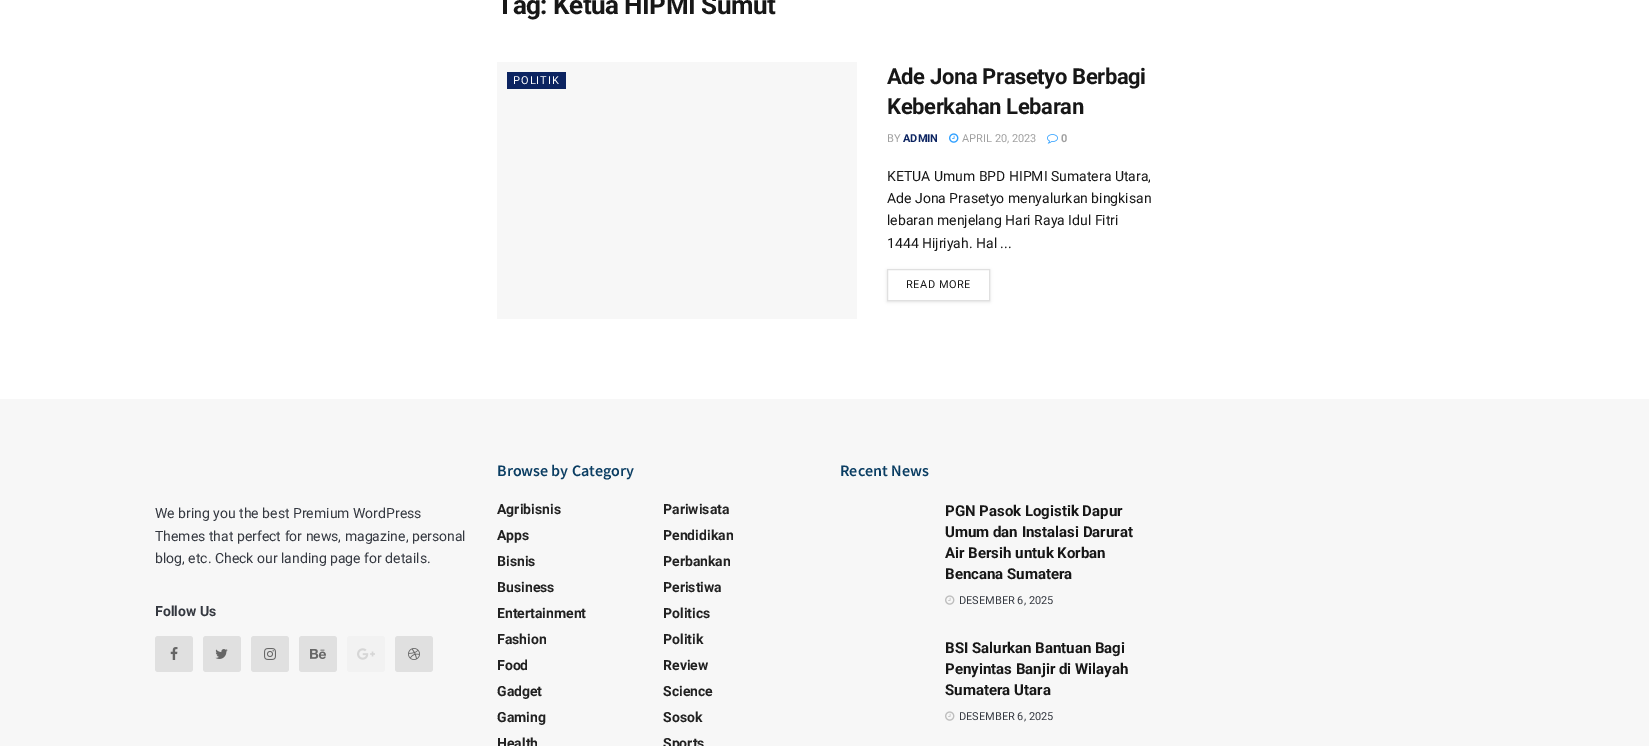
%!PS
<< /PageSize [1649 746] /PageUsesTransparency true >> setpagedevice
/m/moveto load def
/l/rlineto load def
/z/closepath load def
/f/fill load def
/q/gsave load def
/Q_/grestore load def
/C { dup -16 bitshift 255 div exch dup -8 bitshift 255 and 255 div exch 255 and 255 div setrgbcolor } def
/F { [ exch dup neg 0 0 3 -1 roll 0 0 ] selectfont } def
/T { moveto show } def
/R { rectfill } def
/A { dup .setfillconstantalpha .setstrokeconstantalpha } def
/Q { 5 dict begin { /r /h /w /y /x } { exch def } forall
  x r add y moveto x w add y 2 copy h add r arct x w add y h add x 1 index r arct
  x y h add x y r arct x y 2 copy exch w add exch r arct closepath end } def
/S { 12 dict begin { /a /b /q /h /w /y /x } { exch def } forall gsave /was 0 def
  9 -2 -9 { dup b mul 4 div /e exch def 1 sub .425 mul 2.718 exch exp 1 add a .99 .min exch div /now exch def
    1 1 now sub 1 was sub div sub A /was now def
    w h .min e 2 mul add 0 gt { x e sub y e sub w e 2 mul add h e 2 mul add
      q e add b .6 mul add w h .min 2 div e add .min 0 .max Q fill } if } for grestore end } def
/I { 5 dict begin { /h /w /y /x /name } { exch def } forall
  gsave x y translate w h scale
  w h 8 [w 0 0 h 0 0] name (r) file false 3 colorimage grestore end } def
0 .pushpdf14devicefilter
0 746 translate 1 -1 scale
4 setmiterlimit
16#FFFFFF C
0 0 1649 746 R
/Roboto-Bold 26 F
16#171717 C
497 14 m -.5 0 (Tag: Ketua HIPMI Sumut) ashow
16#F7F7F7 C
497 62 360 257 R
16#0C2461 C
507 72 59 17 R
/Roboto-Regular 11 F
16#FFFFFF C
513 84 m 1 0 (POLITIK) ashow
/Roboto-Bold 22 F
16#171717 C
887 84 m -.4 0 (Ade Jona Prasetyo Berbagi) ashow
887 114 m -.4 0 (Keberkahan Lebaran) ashow
/Roboto-Regular 11 F
16#A0A0A0 C
(BY) 887 142 T
/Roboto-Bold 11 F
16#0C2461 C
(ADMIN) 903 142 T
(1.rgb) 949 133 10 10 I
/Roboto-Regular 11 F
16#A0A0A0 C
(APRIL 20, 2023) 962 142 T
(2.rgb) 1047 134 11 10 I
/Roboto-Bold 11 F
(0) 1061 142 T
/Roboto-Regular 14 F
16#171717 C
(KETUA Umum BPD HIPMI Sumatera Utara,) 887 181 T
(Ade Jona Prasetyo menyalurkan bingkisan) 887 203 T
(lebaran menjelang Hari Raya Idul Fitri) 887 225 T
(1444 Hijriyah. Hal ...) 887 248 T
q
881 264 m 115 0 l 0 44 l -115 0 l z 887 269 m 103 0 l 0 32 l -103 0 l z eoclip newpath
16#000000 C
887 270 103 32 0 1.5 .1 S
Q_
16#E0E0E0 C
887.5 269.5 102 31 rectstroke
/Roboto-Regular 11 F
16#171717 C
906 288 m .5 0 (READ MORE) ashow
16#F7F7F7 C
0 399 1649 347 R
/Roboto-Regular 14 F
16#343840 C
(We bring you the best Premium WordPress) 155 518 T
(Themes that perfect for news, magazine, personal) 155 541 T
(blog, etc. Check our landing page for details.) 155 563 T
/Roboto-Bold 14 F
(Follow Us) 155 616 T
16#E0E0E0 C
155 636 38 36 3 Q f
(3.rgb) 170 647 8 13 I
203 636 38 36 3 Q f
(4.rgb) 215 649 13 10 I
251 636 38 36 3 Q f
(5.rgb) 264 648 12 12 I
299 636 38 36 3 Q f
(6.rgb) 310 649 16 10 I
16#F2F2F2 C
347 636 38 36 3 Q f
(7.rgb) 357 648 18 12 I
16#E0E0E0 C
395 636 38 36 3 Q f
(8.rgb) 408 648 12 12 I
/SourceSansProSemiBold-SemiBold 16 F
16#0A3D62 C
(Browse by Category) 497 476 T
/Roboto-Bold 14 F
16#212121 C
(Agribisnis) 497 514 T
(Pariwisata) 663 514 T
(Apps) 497 540 T
(Pendidikan) 663 540 T
(Bisnis) 497 566 T
(Perbankan) 663 566 T
(Business) 497 592 T
(Peristiwa) 663 592 T
(Entertainment) 497 618 T
(Politics) 663 618 T
(Fashion) 497 644 T
(Politik) 663 644 T
(Food) 497 670 T
(Review) 663 670 T
(Gadget) 497 696 T
(Science) 663 696 T
(Gaming) 497 722 T
(Sosok) 663 722 T
(Health) 497 748 T
(Sports) 663 748 T
/SourceSansProSemiBold-SemiBold 16 F
16#0A3D62 C
(Recent News) 840 476 T
/Roboto-Bold 15 F
16#171717 C
(PGN Pasok Logistik Dapur) 945 516 T
(Umum dan Instalasi Darurat) 945 537 T
(Air Bersih untuk Korban) 945 558 T
(Bencana Sumatera) 945 579 T
(9.rgb) 945 595 10 10 I
/Roboto-Regular 11 F
16#343840 C
(DESEMBER 6, 2025) 959 604 T
/Roboto-Bold 15 F
16#171717 C
(BSI Salurkan Bantuan Bagi) 945 653 T
(Penyintas Banjir di Wilayah) 945 674 T
(Sumatera Utara) 945 695 T
(9.rgb) 945 711 10 10 I
/Roboto-Regular 11 F
16#343840 C
(DESEMBER 6, 2025) 959 720 T
.poppdf14devicefilter showpage
